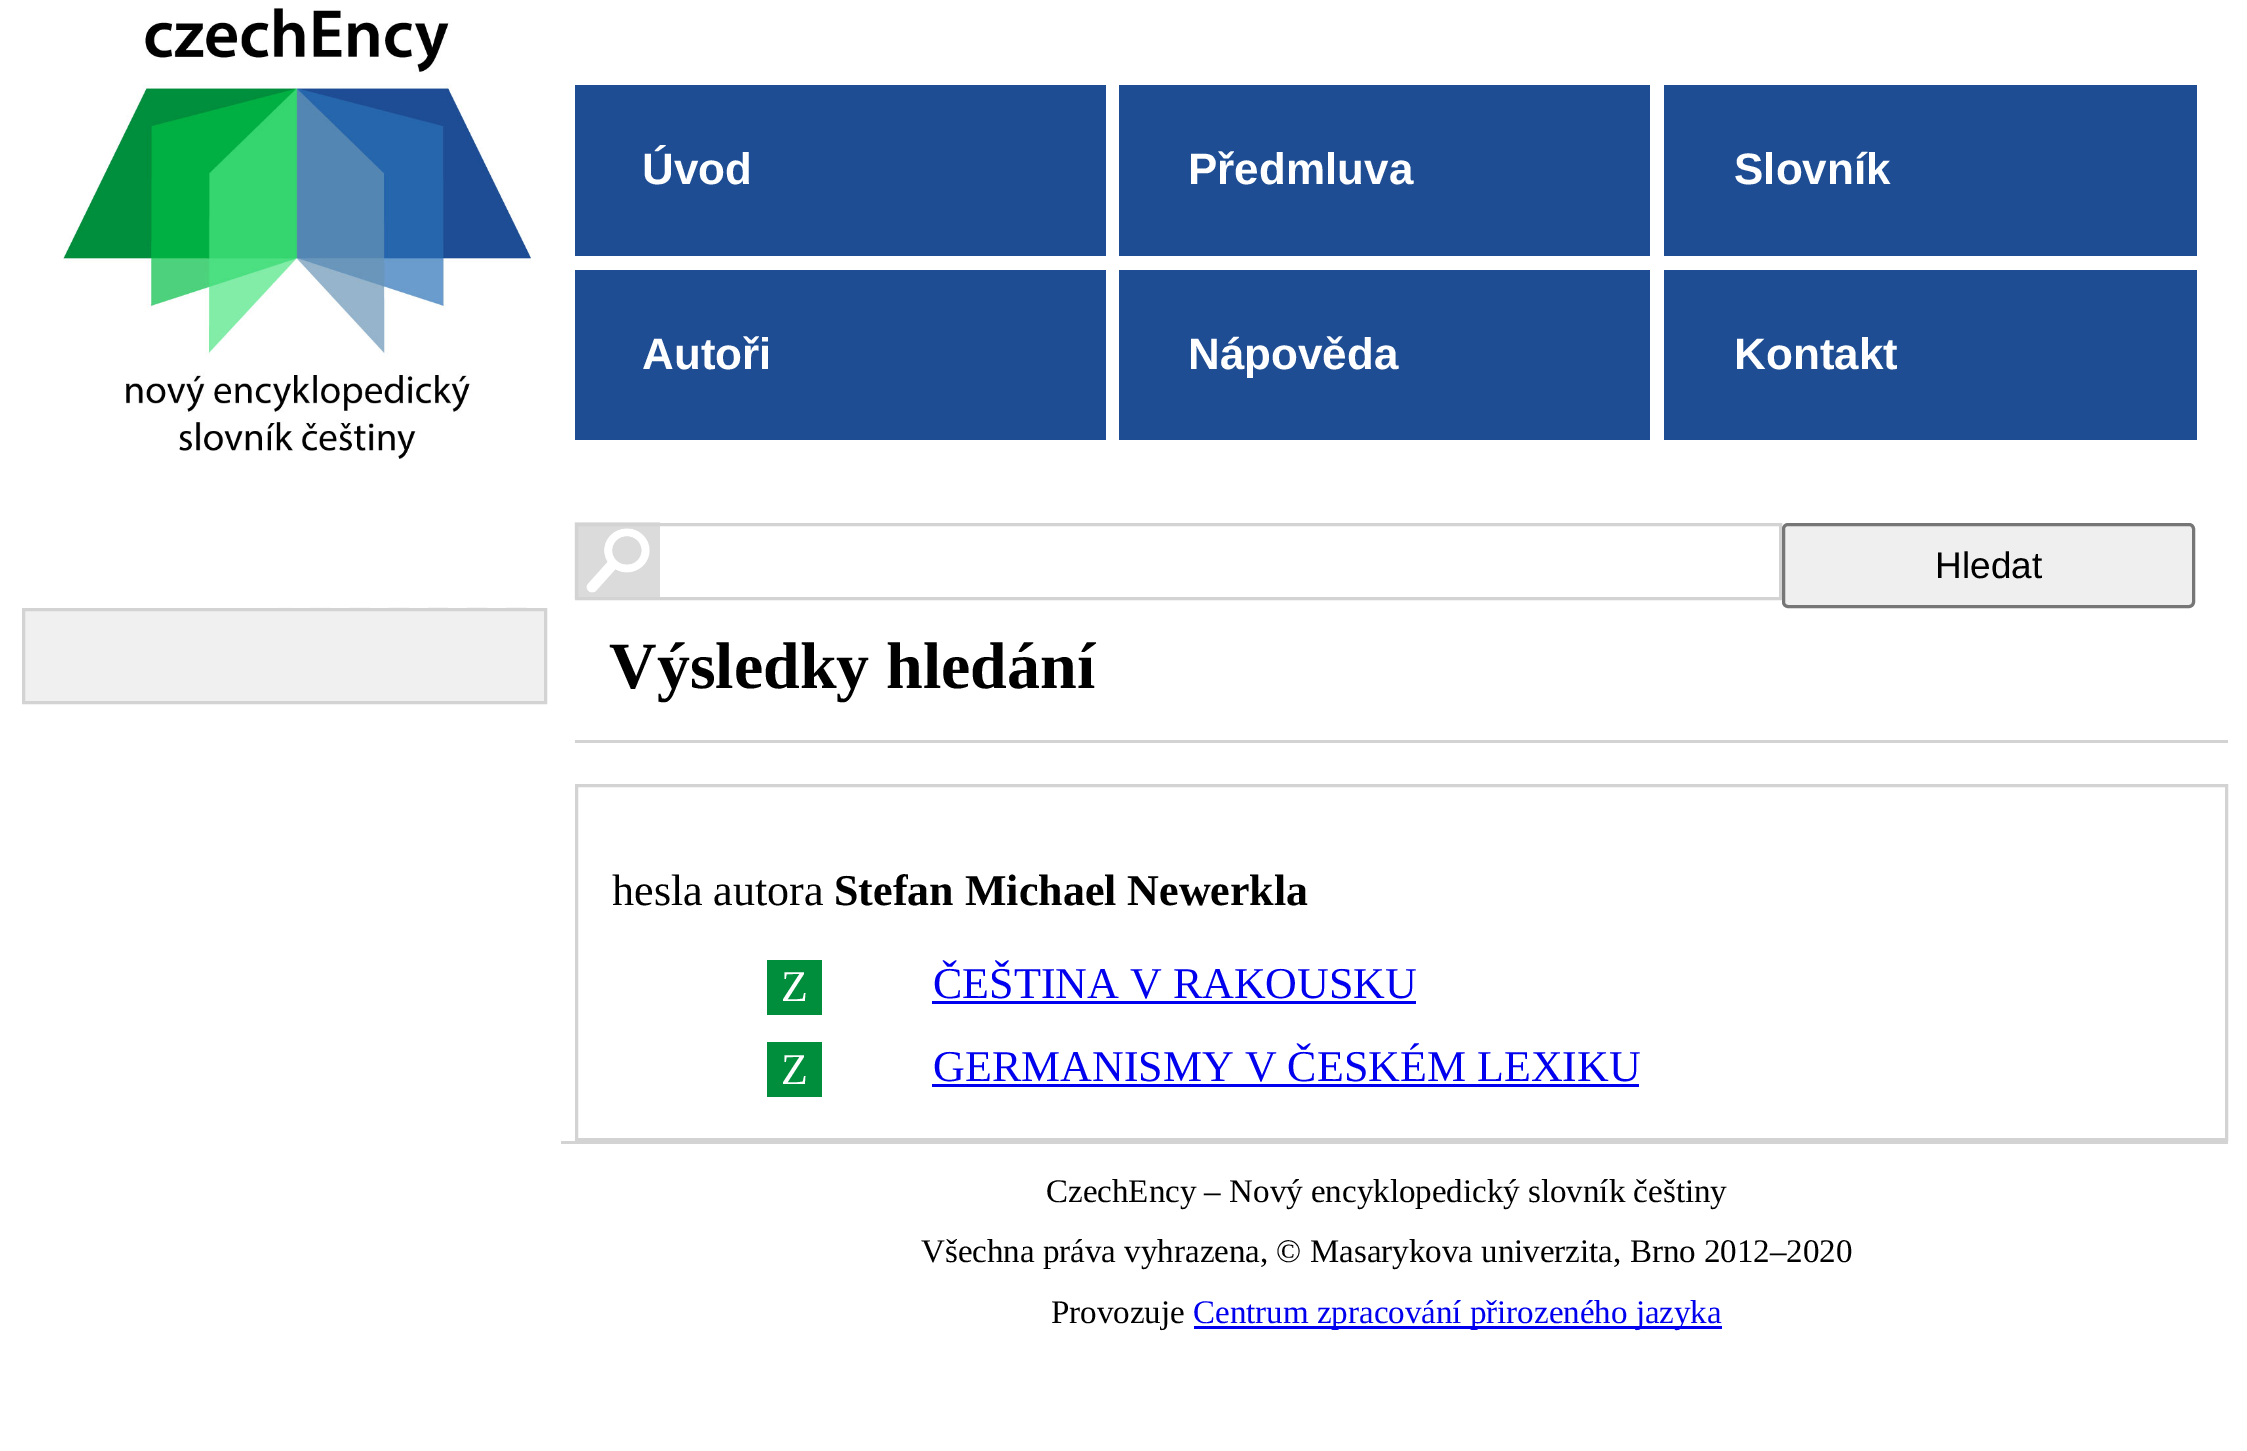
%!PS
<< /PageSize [2247 1451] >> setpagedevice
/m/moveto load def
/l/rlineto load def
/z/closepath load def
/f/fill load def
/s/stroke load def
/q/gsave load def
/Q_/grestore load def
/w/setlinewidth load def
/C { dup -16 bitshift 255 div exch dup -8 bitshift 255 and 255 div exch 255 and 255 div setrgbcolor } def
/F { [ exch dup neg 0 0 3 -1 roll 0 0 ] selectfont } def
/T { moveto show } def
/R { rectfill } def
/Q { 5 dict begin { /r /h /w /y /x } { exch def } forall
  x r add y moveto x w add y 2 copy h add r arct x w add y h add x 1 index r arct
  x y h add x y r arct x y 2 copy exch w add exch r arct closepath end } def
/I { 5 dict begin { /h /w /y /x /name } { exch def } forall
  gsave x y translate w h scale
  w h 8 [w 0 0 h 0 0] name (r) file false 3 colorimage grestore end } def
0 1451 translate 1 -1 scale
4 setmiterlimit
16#FFFFFF C
0 0 2247 1451 R
(1.rgb) 63 7 468 452 I
16#1E4D94 C
575 85 531 171 R
/LiberationSans-Bold 44 F
16#FFFFFF C
(Úvod) 642 184 T
16#1E4D94 C
1119 85 531 171 R
16#FFFFFF C
(Předmluva) 1188 184 T
16#1E4D94 C
1664 85 533 171 R
16#FFFFFF C
(Slovník) 1734 184 T
16#1E4D94 C
575 270 531 170 R
16#FFFFFF C
(Autoři) 642 369 T
16#1E4D94 C
1119 270 531 170 R
16#FFFFFF C
(Nápověda) 1188 369 T
16#1E4D94 C
1664 270 533 170 R
16#FFFFFF C
(Kontakt) 1734 369 T
(2.rgb) 574 522 86 78 I
16#D3D3D3 C
3 w
576.5 524.5 1204 74 rectstroke
16#EFEFEF C
1783.5 524.5 410 82 4.5 Q q f Q_
16#767676 C
s
/LiberationSans-Regular 37 F
16#000000 C
(Hledat) 1935 578 T
(3.rgb) 278 607 267 1 I
16#F0F0F0 C
23.5 609.5 m 522 0 l 0 93 l -522 0 l z q f Q_
16#D3D3D3 C
s
/LiberationSerif-Bold 66 F
16#000000 C
(Výsledky hledání) 609 688 T
16#D3D3D3 C
575 740 1653 3 R
576.5 785.5 1650 354 rectstroke
/LiberationSerif-Regular 44 F
16#000000 C
(hesla autora) 612 905 T
/LiberationSerif-Bold 44 F
(Stefan Michael Newerkla) 834 905 T
16#008E3D C
767 960 55 55 R
/LiberationSerif-Regular 44 F
16#FFFFFF C
(Z) 781 1001 T
16#0000EE C
(ČEŠTINA V RAKOUSKU) 933 998 T
932 1001 484 3 R
16#008E3D C
767 1042 55 55 R
16#FFFFFF C
(Z) 781 1084 T
16#0000EE C
(GERMANISMY V ČESKÉM LEXIKU) 933 1081 T
932 1084 707 3 R
16#D3D3D3 C
561 1141 1667 3 R
/LiberationSerif-Regular 33 F
16#000000 C
(CzechEncy – Nový encyklopedický slovník češtiny) 1046 1202 T
(Všechna práva vyhrazena, © Masarykova univerzita, Brno 2012–2020) 921 1262 T
(Provozuje) 1051 1323 T
16#0000EE C
1194 1326 528 3 R
(Centrum zpracování přirozeného jazyka) 1193 1323 T
showpage
